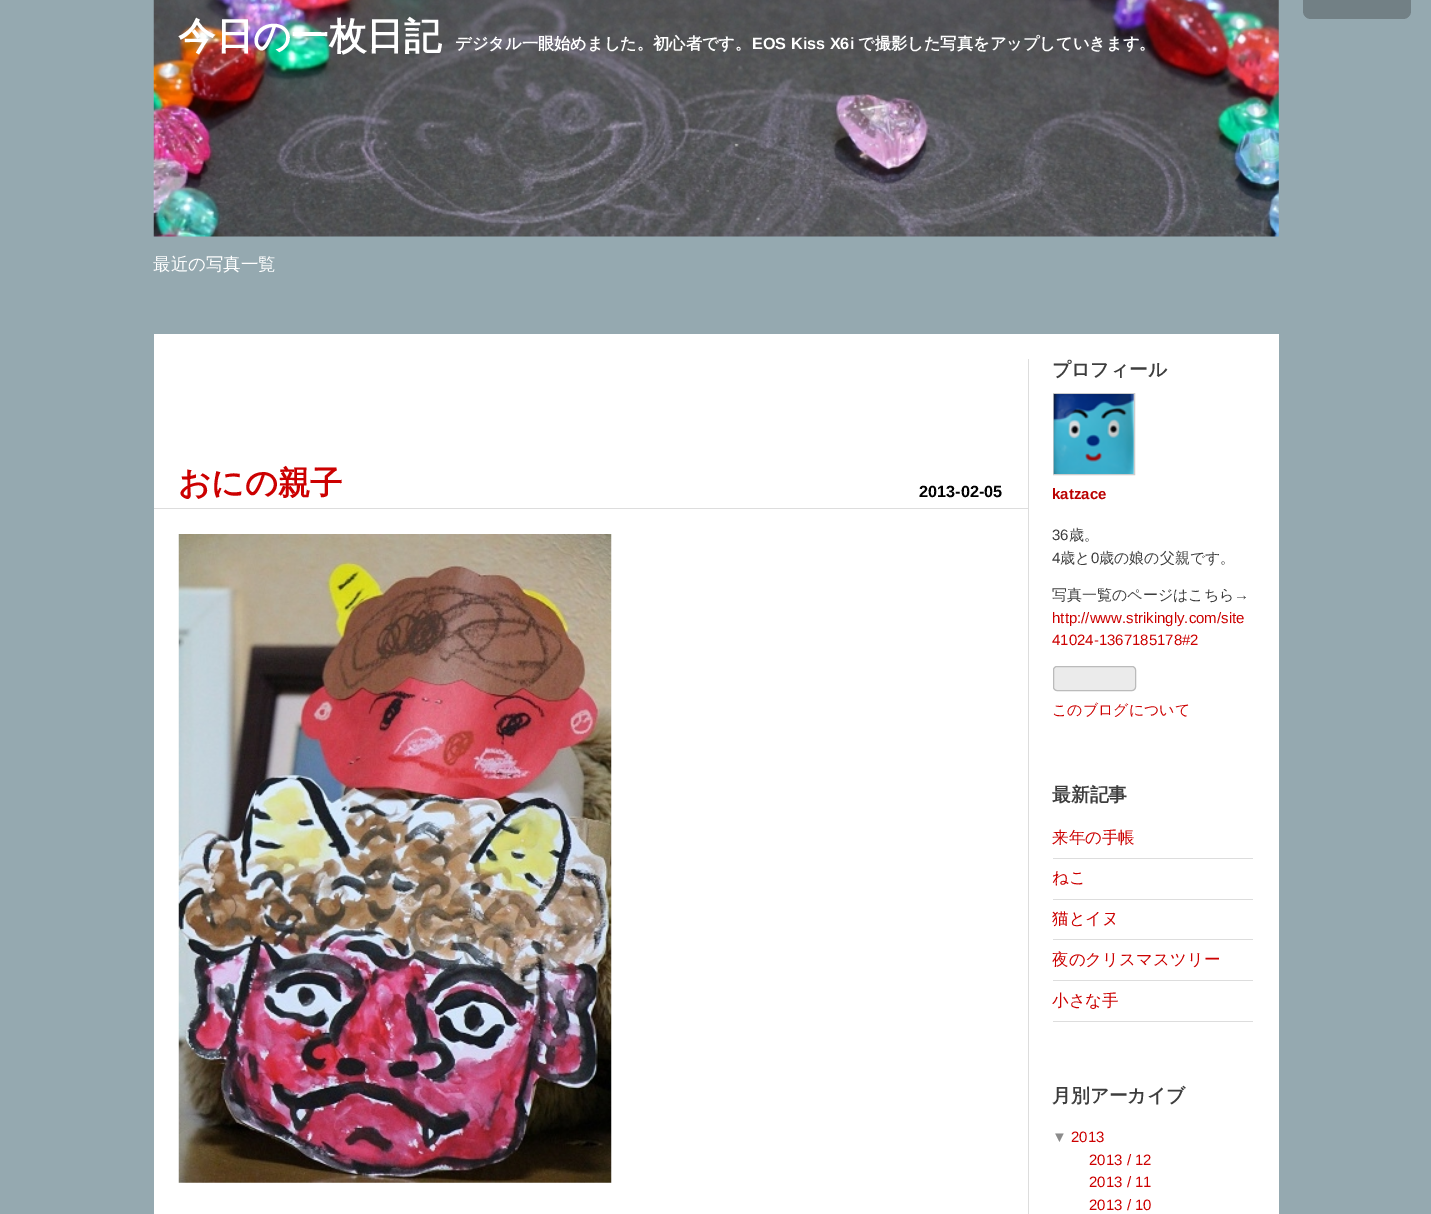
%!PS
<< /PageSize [1431 1214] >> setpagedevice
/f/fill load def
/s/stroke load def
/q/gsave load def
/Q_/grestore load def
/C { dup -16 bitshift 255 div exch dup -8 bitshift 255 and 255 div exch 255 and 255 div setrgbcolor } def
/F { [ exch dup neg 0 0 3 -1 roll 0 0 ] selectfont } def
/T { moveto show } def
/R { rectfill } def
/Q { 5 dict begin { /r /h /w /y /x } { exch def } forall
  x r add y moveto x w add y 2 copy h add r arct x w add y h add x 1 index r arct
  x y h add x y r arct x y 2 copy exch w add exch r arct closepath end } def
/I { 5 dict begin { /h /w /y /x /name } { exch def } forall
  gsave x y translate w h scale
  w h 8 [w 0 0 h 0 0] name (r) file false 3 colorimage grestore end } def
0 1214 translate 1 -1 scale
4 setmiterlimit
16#95A9B0 C
0 0 1431 1214 R
16#728085 C
1303 -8 108 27 8 Q f
(1.rgb) 153 0 1126 237 I
/WenQuanYiZenHei-Bold 37.5 F
16#FFFFFF C
(今日の一枚日記) 178 49 T
/WenQuanYiZenHei-Bold 16.25 F
(デジタル一眼始めました。初心者です。) 455 49 T
/LiberationSans-Bold 16.25 F
(EOS Kiss X6i) 752 49 T
/WenQuanYiZenHei-Bold 16.25 F
(で撮影した写真をアップしていきます。) 858 49 T
/WenQuanYiZenHei-Medium 17.5 F
(最近の写真一覧) 153 270 T
154 334 1125 880 R
16#DDDDDD C
1028 359 1 855 R
154 508 874 1 R
/WenQuanYiZenHei-Bold 32.5 F
16#CC0000 C
(おにの親子) 178 494 T
/LiberationSans-Bold 16.25 F
16#000000 C
(2013-02-05) 919 497 T
(2.rgb) 178 534 434 649 I
/WenQuanYiZenHei-Bold 18.75 F
16#3D3D3D C
(プロフィール) 1052 376 T
16#CCCCCC C
1053.5 393.5 81 81 rectstroke
(3.rgb) 1053 394 81 80 I
/LiberationSans-Bold 15 F
16#BA0000 C
(katzace) 1052 499 T
/LiberationSans-Regular 15 F
16#3D3D3D C
(36) 1052 540 T
/WenQuanYiZenHei-Medium 15 F
(歳。) 1069 540 T
/LiberationSans-Regular 15 F
(4) 1052 563 T
/WenQuanYiZenHei-Medium 15 F
(歳と) 1060 563 T
/LiberationSans-Regular 15 F
(0) 1091 563 T
/WenQuanYiZenHei-Medium 15 F
(歳の娘の父親です。) 1099 563 T
(写真一覧のページはこちら) 1052 600 T
/LiberationSans-Regular 15 F
(→) 1234 600 T
16#CC0000 C
(http://www.strikingly.com/site) 1052 623 T
(41024-1367185178#2) 1052 645 T
16#EBEBEB C
1053.5 666.5 82 24 3.5 Q q f Q_
16#BBBBBB C
s
/WenQuanYiZenHei-Medium 15 F
16#CC0000 C
(このブログについて) 1052 715 T
/WenQuanYiZenHei-Bold 18.75 F
16#3D3D3D C
(最新記事) 1052 801 T
16#DDDDDD C
1053 858 200 1 R
/WenQuanYiZenHei-Medium 16.5 F
16#CC0000 C
(来年の手帳) 1052 843 T
16#DDDDDD C
1053 899 200 1 R
16#CC0000 C
(ねこ) 1052 883 T
16#DDDDDD C
1053 939 200 1 R
16#CC0000 C
(猫とイヌ) 1052 924 T
16#DDDDDD C
1053 980 200 1 R
16#CC0000 C
(夜のクリスマスツリー) 1052 965 T
16#DDDDDD C
1053 1021 200 1 R
16#CC0000 C
(小さな手) 1052 1006 T
/WenQuanYiZenHei-Bold 18.75 F
16#3D3D3D C
(月別アーカイブ) 1052 1102 T
/LiberationSans-Regular 15 F
16#8B8B8B C
(▼) 1052 1142 T
16#CC0000 C
(2013) 1071 1142 T
(2013 / 12) 1089 1165 T
(2013 / 11) 1089 1187 T
(2013 / 10) 1089 1210 T
showpage
